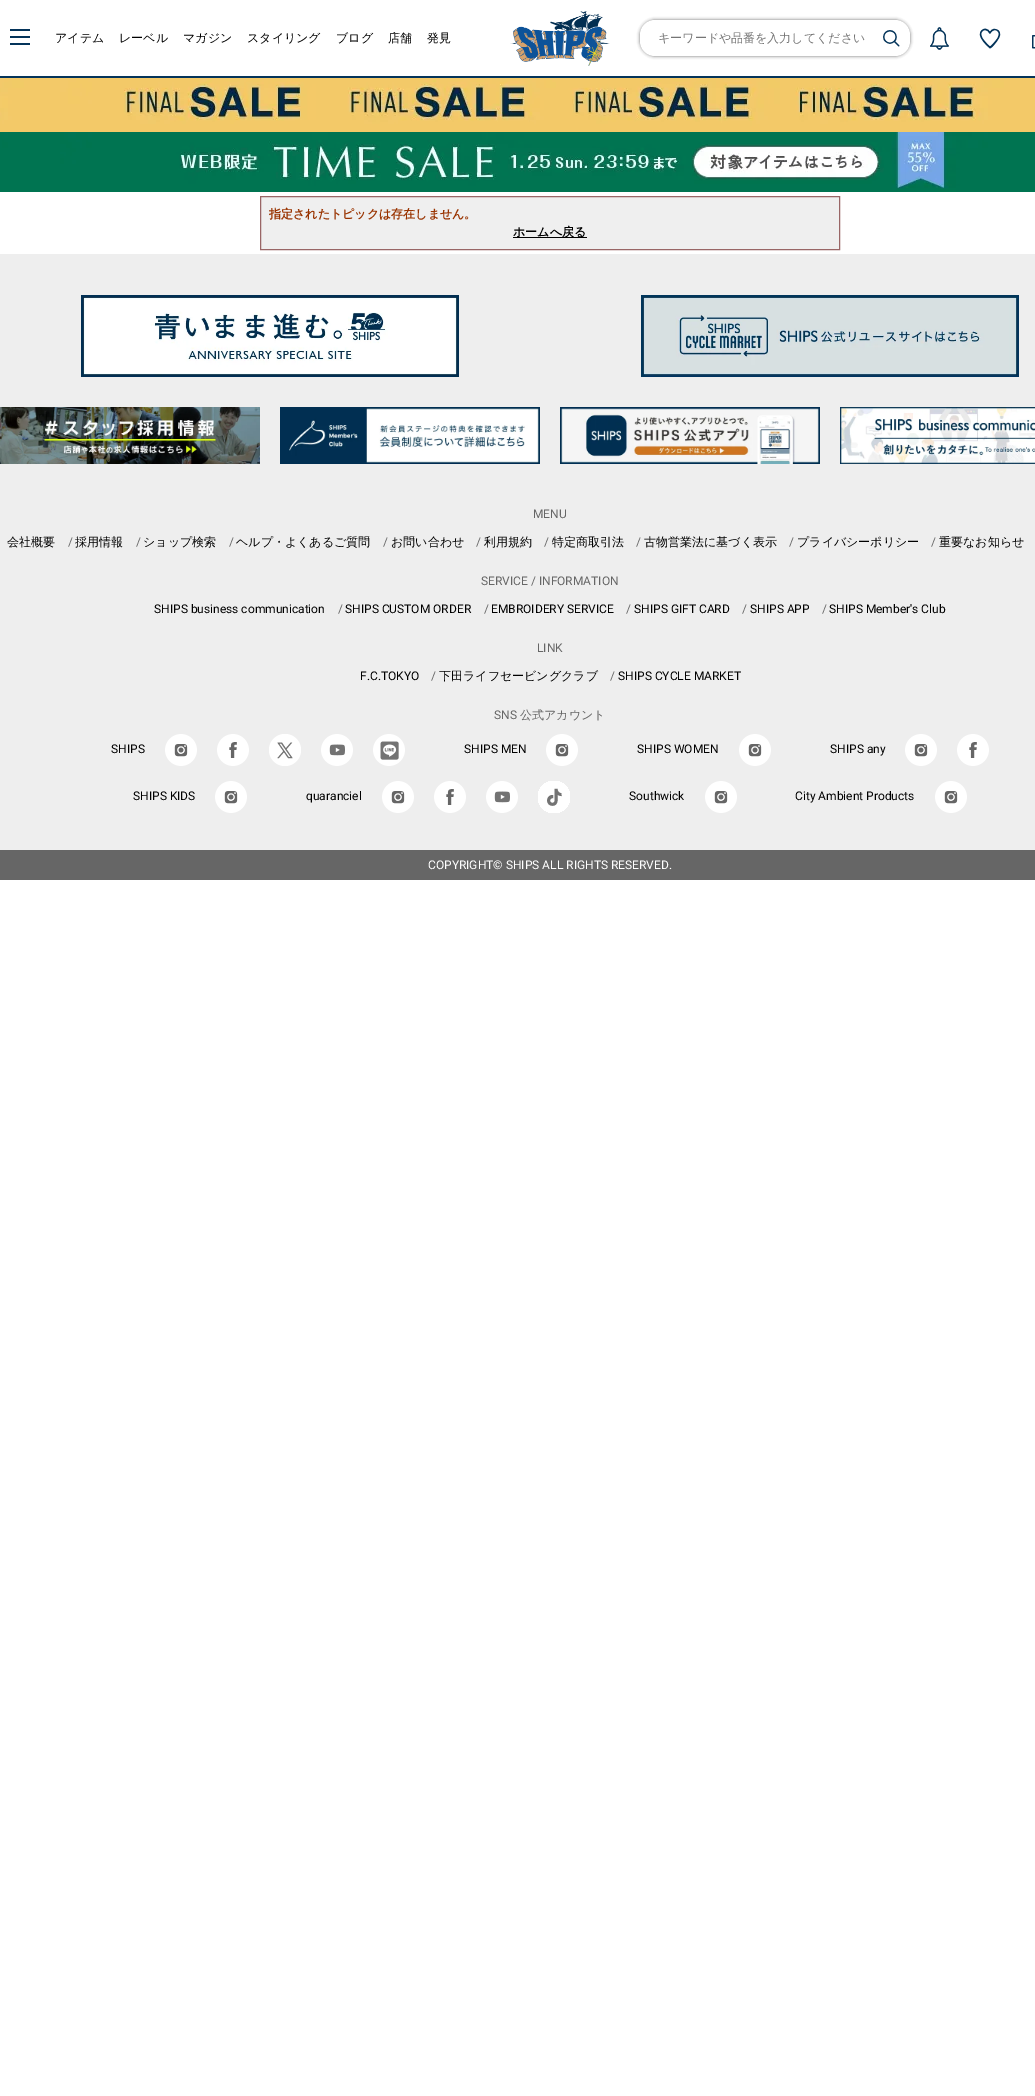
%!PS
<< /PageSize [1035 2096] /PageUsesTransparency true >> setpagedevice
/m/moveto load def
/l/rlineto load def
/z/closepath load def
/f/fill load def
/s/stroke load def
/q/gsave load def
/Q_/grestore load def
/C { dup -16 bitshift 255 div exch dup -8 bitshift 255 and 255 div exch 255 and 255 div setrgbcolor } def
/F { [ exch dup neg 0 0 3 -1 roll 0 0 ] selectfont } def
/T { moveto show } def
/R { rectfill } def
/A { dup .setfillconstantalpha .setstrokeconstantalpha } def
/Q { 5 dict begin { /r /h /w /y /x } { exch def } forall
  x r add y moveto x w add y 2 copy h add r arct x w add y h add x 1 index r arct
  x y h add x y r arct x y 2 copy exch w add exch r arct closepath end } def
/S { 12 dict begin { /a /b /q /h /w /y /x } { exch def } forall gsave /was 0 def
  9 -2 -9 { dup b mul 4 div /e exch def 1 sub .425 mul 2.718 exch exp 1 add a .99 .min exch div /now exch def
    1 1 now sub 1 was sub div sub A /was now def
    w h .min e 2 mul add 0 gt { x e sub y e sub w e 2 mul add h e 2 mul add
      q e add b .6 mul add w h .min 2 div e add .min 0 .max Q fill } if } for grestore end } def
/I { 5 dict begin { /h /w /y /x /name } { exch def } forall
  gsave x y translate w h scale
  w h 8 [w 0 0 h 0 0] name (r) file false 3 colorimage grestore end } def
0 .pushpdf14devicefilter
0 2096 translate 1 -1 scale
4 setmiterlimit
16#FFFFFF C
0 0 1035 2096 R
16#04345A C
0 76 1035 2 R
10 36 20 2 R
10 29 20 2 R
10 43 20 2 R
/WenQuanYiZenHei-Medium 12 F
16#000000 C
(アイテム) 55 42 T
(レーベル) 119 42 T
(マガジン) 183 42 T
(スタイリング) 247 42 T
(ブログ) 336 42 T
(店舗) 388 42 T
(発見) 427 42 T
(1.rgb) 510 11 100 55 I
641 21 268 34 14 2 1 S
16#FFFFFF C
640 20 270 36 15 Q f
16#757575 C
(キーワードや品番を入力してください) 658 42 T
(2.rgb) 883 30 17 17 I
(3.rgb) 930 27 19 23 I
(4.rgb) 979 28 22 21 I
(5.rgb) 1032 35 3 14 I
(6.rgb) 0 78 1035 54 I
(7.rgb) 0 132 1035 60 I
16#EFEFEF C
260.5 196.5 m 579 0 l 0 53 l -579 0 l z q f Q_
16#996666 C
s
/WenQuanYiZenHei-Bold 12 F
16#993300 C
(指定されたトピックは存在しません。) 269 218 T
16#000000 C
513 237 74 1 R
(ホームへ戻る) 513 236 T
16#EEEEEE C
0 254 1035 596 R
(8.rgb) 81 295 378 82 I
(9.rgb) 641 295 378 82 I
(10.rgb) 0 407 260 57 I
(11.rgb) 280 407 260 57 I
(12.rgb) 560 407 260 57 I
(13.rgb) 840 407 195 57 I
/Roboto-Regular 12 F
16#666666 C
(MENU) 533 518 T
/WenQuanYiZenHei-Medium 12 F
16#000000 C
(会社概要) 7 546 T
/Roboto-Regular 12 F
16#666666 C
(/) 68 546 T
/WenQuanYiZenHei-Medium 12 F
16#000000 C
(採用情報) 75 546 T
/Roboto-Regular 12 F
16#666666 C
(/) 136 546 T
/WenQuanYiZenHei-Medium 12 F
16#000000 C
(ショップ検索) 143 546 T
/Roboto-Regular 12 F
16#666666 C
(/) 229 546 T
/WenQuanYiZenHei-Medium 12 F
16#000000 C
(ヘルプ・よくあるご質問) 236 546 T
/Roboto-Regular 12 F
16#666666 C
(/) 383 546 T
/WenQuanYiZenHei-Medium 12 F
16#000000 C
(お問い合わせ) 391 546 T
/Roboto-Regular 12 F
16#666666 C
(/) 476 546 T
/WenQuanYiZenHei-Medium 12 F
16#000000 C
(利用規約) 484 546 T
/Roboto-Regular 12 F
16#666666 C
(/) 544 546 T
/WenQuanYiZenHei-Medium 12 F
16#000000 C
(特定商取引法) 552 546 T
/Roboto-Regular 12 F
16#666666 C
(/) 636 546 T
/WenQuanYiZenHei-Medium 12 F
16#000000 C
(古物営業法に基づく表示) 644 546 T
/Roboto-Regular 12 F
16#666666 C
(/) 789 546 T
/WenQuanYiZenHei-Medium 12 F
16#000000 C
(プライバシーポリシー) 797 546 T
/Roboto-Regular 12 F
16#666666 C
(/) 931 546 T
/WenQuanYiZenHei-Medium 12 F
16#000000 C
(重要なお知らせ) 939 546 T
/Roboto-Regular 12 F
16#666666 C
(SERVICE / INFORMATION) 481 585 T
16#000000 C
(SHIPS business communication) 154 613 T
16#666666 C
(/) 338 613 T
16#000000 C
(SHIPS CUSTOM ORDER) 345 613 T
16#666666 C
(/) 484 613 T
16#000000 C
(EMBROIDERY SERVICE) 491 613 T
16#666666 C
(/) 626 613 T
16#000000 C
(SHIPS GIFT CARD) 634 613 T
16#666666 C
(/) 742 613 T
16#000000 C
(SHIPS APP) 750 613 T
16#666666 C
(/) 822 613 T
16#000000 C
(SHIPS Member's Club) 829 613 T
16#666666 C
(LINK) 537 652 T
16#000000 C
(F.C.TOKYO) 360 680 T
16#666666 C
(/) 431 680 T
/WenQuanYiZenHei-Medium 12 F
16#000000 C
(下田ライフセービングクラブ) 439 680 T
/Roboto-Regular 12 F
16#666666 C
(/) 610 680 T
16#000000 C
(SHIPS CYCLE MARKET) 618 680 T
16#666666 C
(SNS) 494 719 T
/WenQuanYiZenHei-Medium 12 F
(公式アカウント) 520 719 T
/Roboto-Regular 12 F
16#000000 C
(SHIPS) 111 753 T
(14.rgb) 165 734 32 32 I
(15.rgb) 217 734 32 32 I
(16.rgb) 269 734 32 32 I
(17.rgb) 321 734 32 32 I
(18.rgb) 373 734 32 32 I
(SHIPS MEN) 464 753 T
(14.rgb) 546 734 32 32 I
(SHIPS WOMEN) 637 753 T
(14.rgb) 739 734 32 32 I
(SHIPS any) 830 753 T
(14.rgb) 905 734 32 32 I
(15.rgb) 957 734 32 32 I
(SHIPS KIDS) 133 800 T
(14.rgb) 215 781 32 32 I
(quaranciel) 306 800 T
(14.rgb) 382 781 32 32 I
(15.rgb) 434 781 32 32 I
(17.rgb) 486 781 32 32 I
(19.rgb) 538 781 32 32 I
(Southwick) 629 800 T
(14.rgb) 705 781 32 32 I
(City Ambient Products) 795 800 T
(14.rgb) 935 781 32 32 I
16#666666 C
0 850 1035 30 R
16#FFFFFF C
(COPYRIGHT© SHIPS ALL RIGHTS RESERVED.) 428 869 T
.poppdf14devicefilter showpage
